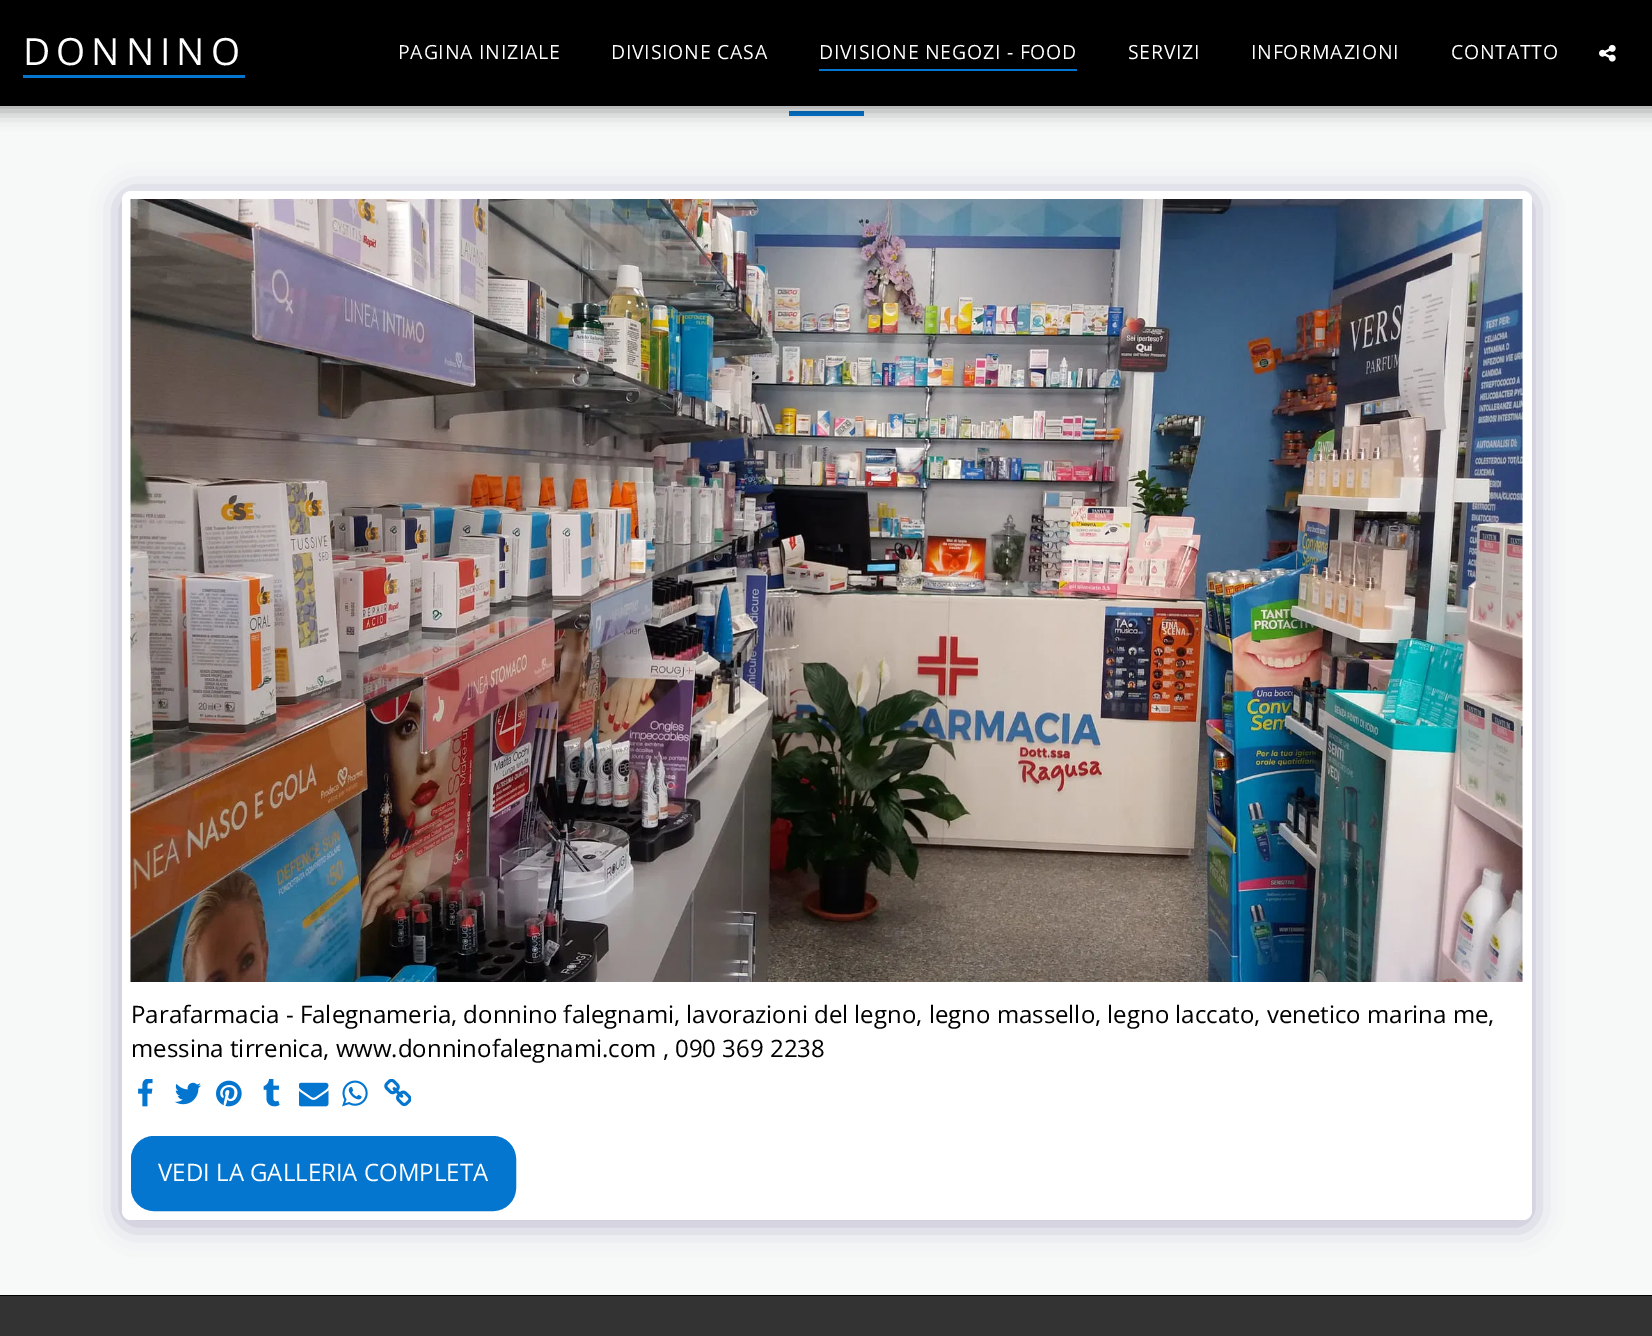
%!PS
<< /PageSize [1652 1336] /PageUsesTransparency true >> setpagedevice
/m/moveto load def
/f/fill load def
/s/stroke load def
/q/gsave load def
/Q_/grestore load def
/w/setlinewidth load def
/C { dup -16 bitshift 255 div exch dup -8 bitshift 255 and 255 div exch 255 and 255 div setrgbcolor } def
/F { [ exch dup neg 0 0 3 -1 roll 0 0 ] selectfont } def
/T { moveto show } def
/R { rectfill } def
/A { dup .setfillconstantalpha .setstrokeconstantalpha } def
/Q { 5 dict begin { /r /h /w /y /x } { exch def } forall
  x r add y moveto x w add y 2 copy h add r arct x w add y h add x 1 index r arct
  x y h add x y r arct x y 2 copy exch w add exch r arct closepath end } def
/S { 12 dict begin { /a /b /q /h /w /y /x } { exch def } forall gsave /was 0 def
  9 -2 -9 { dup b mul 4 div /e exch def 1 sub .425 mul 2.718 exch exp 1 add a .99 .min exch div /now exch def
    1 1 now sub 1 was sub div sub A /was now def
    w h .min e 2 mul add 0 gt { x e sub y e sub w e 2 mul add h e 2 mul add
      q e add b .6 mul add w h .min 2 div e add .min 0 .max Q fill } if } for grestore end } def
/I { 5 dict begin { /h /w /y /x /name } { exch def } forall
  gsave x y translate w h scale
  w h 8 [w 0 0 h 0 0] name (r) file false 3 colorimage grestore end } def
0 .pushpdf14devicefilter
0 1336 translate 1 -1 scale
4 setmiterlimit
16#F7F9F8 C
0 0 1652 1336 R
16#0476D0 C
789 111 75 5 R
16#000000 C
-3 0 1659 111 0 9 .35 S
0 0 1652 106 R
16#0476D0 C
23 75 222 3 R
/OpenSans-Regular 37.5 F
16#FFFFFF C
23 65 m 6 0 (DONNINO) ashow
/OpenSans-Regular 19.5 F
398 59 m .75 0 (PAGINA INIZIALE) ashow
611 59 m .75 0 (DIVISIONE CASA) ashow
819 59 m .75 0 (DIVISIONE NEGOZI - FOOD) ashow
16#0476D0 C
819 69 258 2 R
16#FFFFFF C
1128 59 m .75 0 (SERVIZI) ashow
1251 59 m .75 0 (INFORMAZIONI) ashow
1451 59 m .75 0 (CONTATTO) ashow
(1.rgb) 1599 44 17 18 I
16#4D3F7A C
122 195 1410 1029 9 15 .4 S
16#FFFFFF C
122 191 1410 1029 9 Q f
(2.rgb) 130 199 1393 783 I
/OpenSans-Regular 24 F
16#000000 C
(Parafarmacia - Falegnameria, donnino falegnami, lavorazioni del legno, legno massello, legno laccato, venetico marina me,) 131 1023 T
(messina tirrenica, www.donninofalegnami.com , 090 369 2238) 131 1057 T
(3.rgb) 138 1079 15 28 I
(4.rgb) 175 1082 26 23 I
(5.rgb) 216 1080 26 27 I
(6.rgb) 263 1079 17 28 I
(7.rgb) 299 1082 30 25 I
(8.rgb) 342 1080 26 27 I
(9.rgb) 384 1079 27 28 I
16#0476D0 C
132 1137 383 73 22 Q q f Q_
2 w
s
16#FFFFFF C
(VEDI LA GALLERIA COMPLETA) 158 1181 T
16#000000 C
0 1295 1652 1 R
16#333333 C
0 1296 1652 40 R
.poppdf14devicefilter showpage
